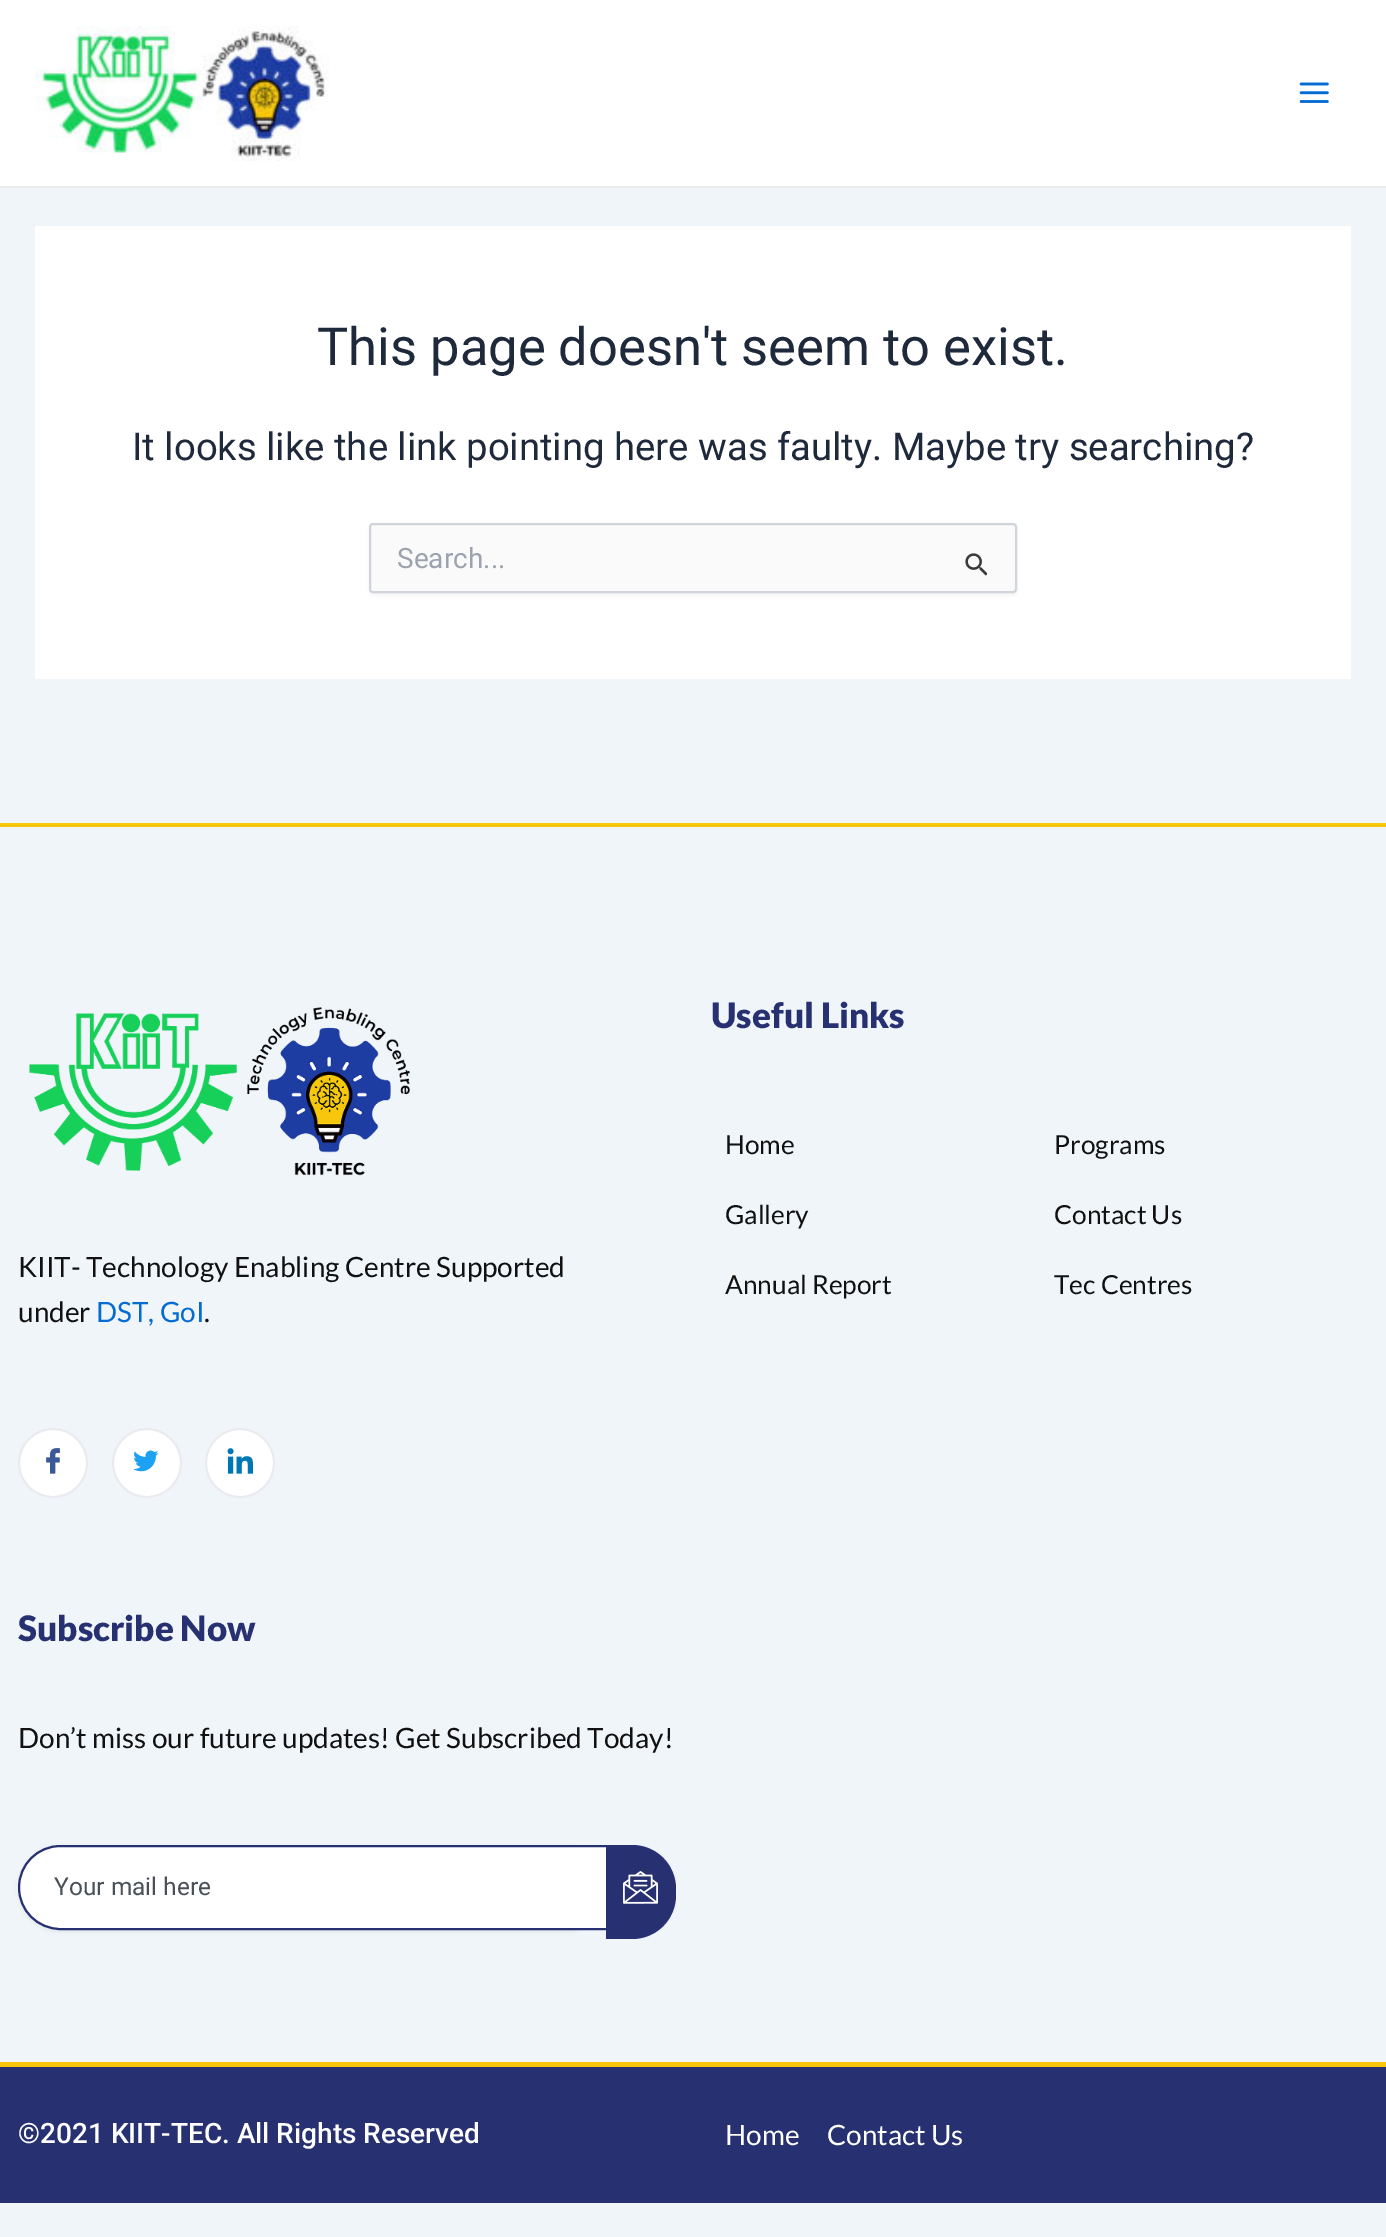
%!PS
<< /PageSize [1386 2237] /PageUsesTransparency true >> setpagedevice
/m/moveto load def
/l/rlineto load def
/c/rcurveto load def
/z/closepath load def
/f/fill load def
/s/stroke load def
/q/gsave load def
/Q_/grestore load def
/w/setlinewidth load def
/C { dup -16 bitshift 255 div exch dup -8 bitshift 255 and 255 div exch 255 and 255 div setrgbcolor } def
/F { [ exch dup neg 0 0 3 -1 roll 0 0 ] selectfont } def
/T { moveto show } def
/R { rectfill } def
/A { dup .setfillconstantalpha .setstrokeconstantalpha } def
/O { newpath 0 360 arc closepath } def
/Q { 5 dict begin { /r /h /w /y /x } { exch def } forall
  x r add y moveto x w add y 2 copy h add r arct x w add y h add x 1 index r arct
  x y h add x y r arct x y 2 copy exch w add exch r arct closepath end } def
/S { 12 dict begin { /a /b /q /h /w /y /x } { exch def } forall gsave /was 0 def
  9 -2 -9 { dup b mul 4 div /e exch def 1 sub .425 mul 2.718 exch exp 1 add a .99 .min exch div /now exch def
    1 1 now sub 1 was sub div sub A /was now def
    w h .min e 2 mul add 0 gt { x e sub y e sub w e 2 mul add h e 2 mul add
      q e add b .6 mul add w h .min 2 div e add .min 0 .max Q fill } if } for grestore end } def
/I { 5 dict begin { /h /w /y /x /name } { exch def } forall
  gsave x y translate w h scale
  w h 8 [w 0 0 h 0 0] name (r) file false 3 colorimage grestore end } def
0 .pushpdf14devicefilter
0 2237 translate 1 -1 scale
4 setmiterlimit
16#F0F5FA C
0 0 1386 2237 R
16#FFFFFF C
0 0 1386 186 R
16#EAEAEA C
0 186 1386 2 R
(1.rgb) 35 26 294 135 I
(2.rgb) 1299 82 30 21 I
16#FFFFFF C
35 226 1316 453 R
/Roboto-Regular 52.5 F
16#1E293B C
(This page doesn't seem to exist.) 317 365 T
/Roboto-Regular 38.3 F
(It looks like the link pointing here was faulty. Maybe try searching?) 132 460 T
16#000000 C
369 525 648 70 4 2 .05 S
16#FAFAFA C
370 524 646 68 3 Q q f Q_
16#D1D5DB C
2 w
s
/Roboto-Regular 28 F
16#9CA3AF C
(Search...) 397 568 T
(3.rgb) 965 553 22 23 I
16#F8C70B C
0 823 1386 4 R
(4.rgb) 29 1007 381 169 I
/Lato-Regular 28 F
16#111111 C
(KIIT- Technology Enabling Centre Supported) 18 1277 T
(under) 18 1322 T
16#046BD2 C
(DST, GoI) 96 1322 T
16#111111 C
(.) 204 1322 T
16#FFFFFF C
53 1463 34 O q f Q_
16#EAEBF1 C
s
(5.rgb) 46 1448 14 26 I
16#FFFFFF C
147 1463 34 O q f Q_
16#EAEBF1 C
s
(6.rgb) 133 1450 26 22 I
16#FFFFFF C
240 1463 34 O q f Q_
16#EAEBF1 C
s
(7.rgb) 227 1448 27 26 I
/Lato-Black 35 F
16#273171 C
(Useful Links) 711 1028 T
/Lato-Regular 26.25 F
16#111111 C
(Home) 725 1154 T
(Gallery) 725 1224 T
(Annual Report) 725 1294 T
(Programs) 1054 1154 T
(Contact Us) 1054 1224 T
(Tec Centres) 1054 1294 T
/Lato-Black 35 F
16#273171 C
(Subscribe Now) 18 1641 T
/Lato-Regular 28 F
16#111111 C
(Don’t miss our future updates! Get Subscribed Today!) 18 1748 T
16#000000 C
18 1846 591 86 43 2 .05 S
16#FFFFFF C
60.5 1846 m 547.5 0 l 0 83 l -547.5 0 l -23 0 -41.5 -18.5 -41.5 -41.5 c 0 -23 18.5 -41.5 41.5 -41.5 c z q f Q_
16#273171 C
s
/Roboto-Regular 24.5 F
16#495057 C
(Your mail here) 54 1895 T
16#273171 C
606 1845 m 26 0 l 24.5 0 44 19.5 44 44 c 0 6 l 0 24.5 -19.5 44 -44 44 c -26 0 l z f
(8.rgb) 623 1871 35 33 I
0 2067 1386 136 R
16#F8C70B C
0 2062 1386 5 R
/Roboto-Medium 28 F
16#FFFFFF C
(©2021 KIIT-TEC. All Rights Reserved) 18 2143 T
/Lato-Regular 28 F
(Home) 725 2145 T
(Contact Us) 827 2145 T
.poppdf14devicefilter showpage
